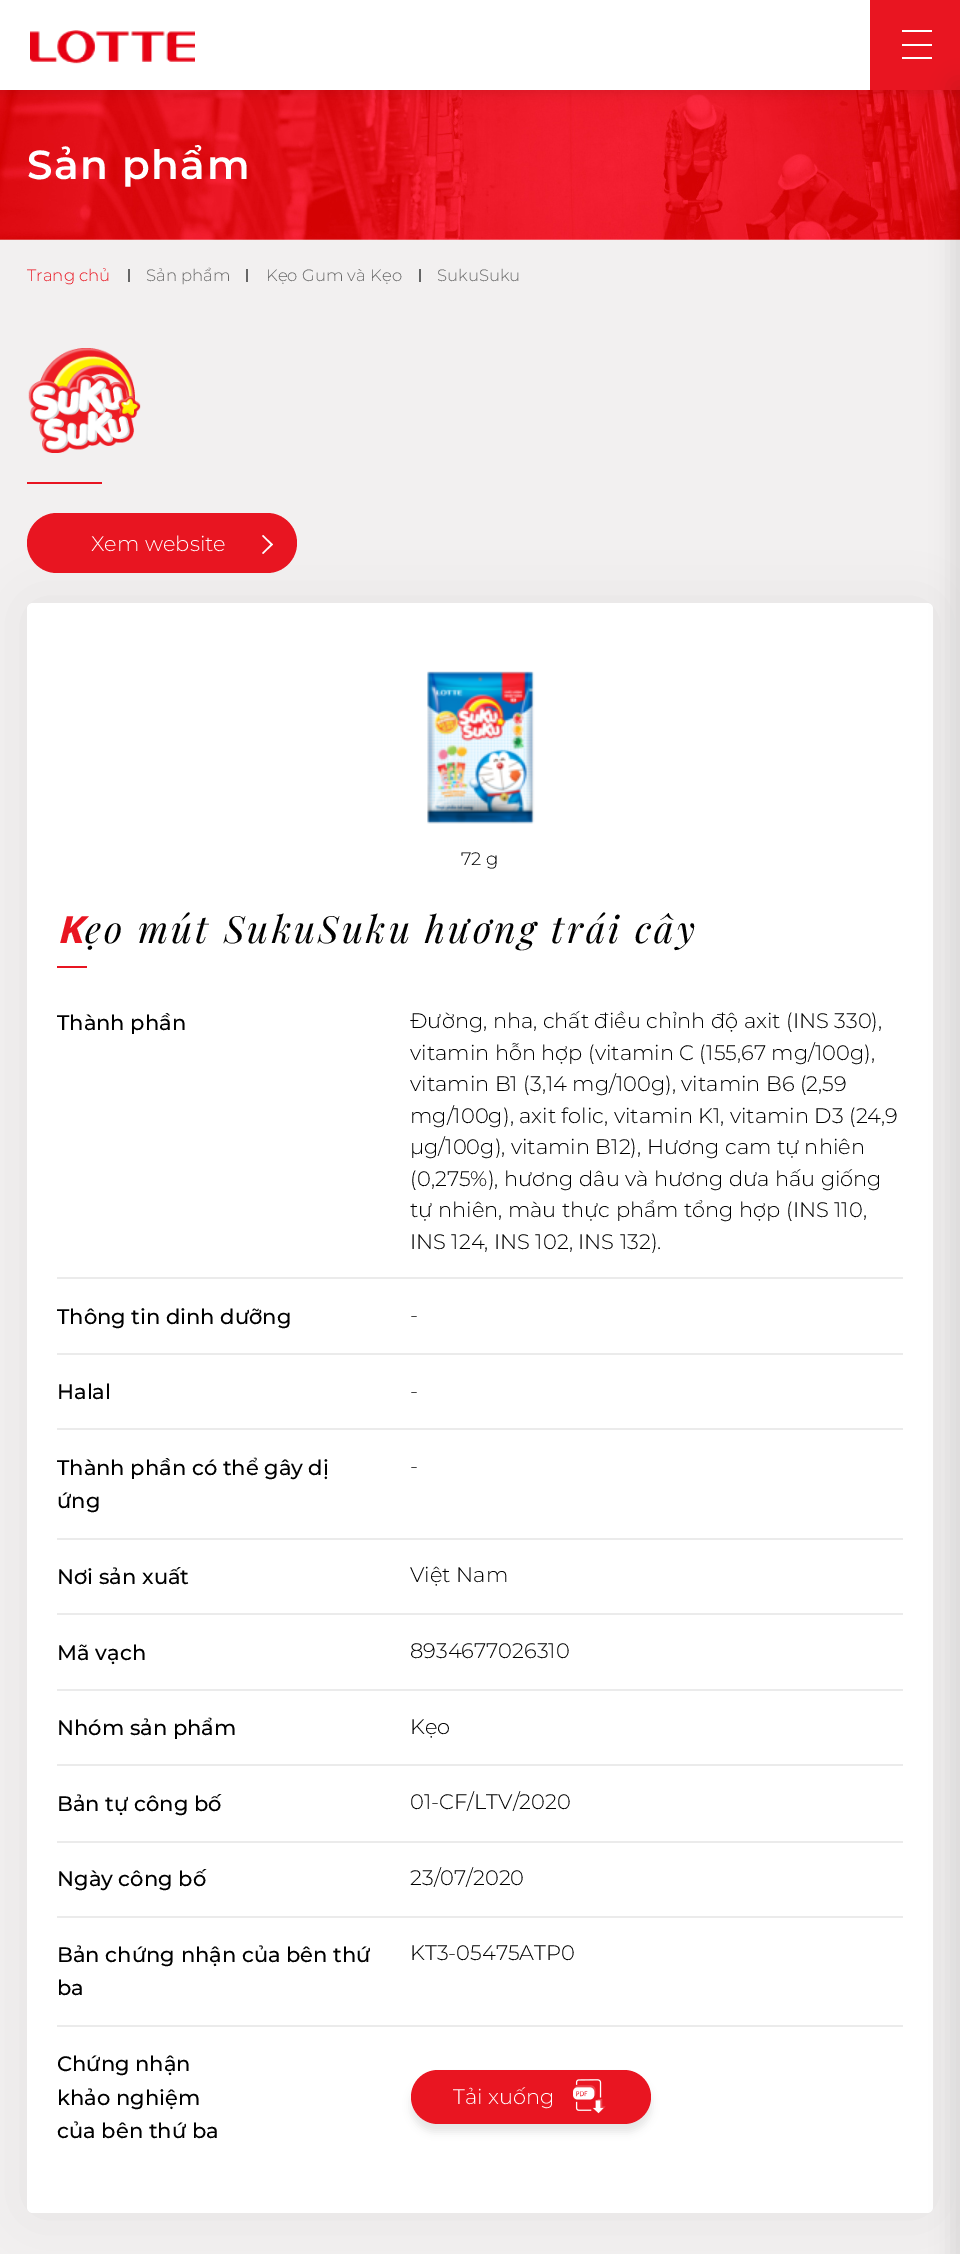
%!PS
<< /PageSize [960 2254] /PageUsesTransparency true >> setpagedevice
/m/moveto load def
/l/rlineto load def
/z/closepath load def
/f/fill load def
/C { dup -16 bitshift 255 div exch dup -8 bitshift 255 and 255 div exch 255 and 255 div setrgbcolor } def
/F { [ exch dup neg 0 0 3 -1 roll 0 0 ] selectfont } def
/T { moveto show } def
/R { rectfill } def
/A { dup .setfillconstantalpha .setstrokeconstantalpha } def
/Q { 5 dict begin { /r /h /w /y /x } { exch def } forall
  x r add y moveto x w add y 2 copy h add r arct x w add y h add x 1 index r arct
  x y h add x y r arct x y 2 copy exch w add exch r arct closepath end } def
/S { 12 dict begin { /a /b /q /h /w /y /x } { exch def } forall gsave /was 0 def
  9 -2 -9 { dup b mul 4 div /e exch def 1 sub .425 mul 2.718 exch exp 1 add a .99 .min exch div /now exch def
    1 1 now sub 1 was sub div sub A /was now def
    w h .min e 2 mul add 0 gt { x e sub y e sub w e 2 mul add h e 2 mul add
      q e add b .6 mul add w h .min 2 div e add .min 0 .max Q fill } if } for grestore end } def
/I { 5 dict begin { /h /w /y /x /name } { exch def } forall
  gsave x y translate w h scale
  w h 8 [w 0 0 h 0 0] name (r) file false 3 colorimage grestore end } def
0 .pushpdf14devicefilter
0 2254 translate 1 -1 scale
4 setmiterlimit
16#FFFFFF C
0 0 960 2254 R
(2.rgb) 0 90 960 150 I
16#000000 C
-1 -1 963 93 0 6 .1 S
16#FFFFFF C
0 0 870 90 R
(1.rgb) 30 30 165 34 I
16#E91521 C
870 0 90 90 R
16#FFFFFF C
902 30 30 2 R
902 44 30 2 R
902 57 30 2 R
16#F2F0F0 C
0 240 960 2014 R
16#000000 C
27 603 906 1610 6 30 .05 S
16#FFFFFF C
27 603 906 1610 6 Q f
16#000000 C
953 83 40 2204 0 11 .1 S
/Montserrat-SemiBold 40.5 F
16#FFFFFF C
27 179 m 1.5 0 (Sản phẩm) ashow
/Montserrat-Light 16.5 F
16#E91521 C
(Trang chủ) 27 281 T
16#666666 C
128 269 2 13 R
(Sản phẩm) 146 281 T
246 269 2 13 R
(Kẹo Gum và Kẹo) 266 281 T
419 269 2 13 R
(SukuSuku) 437 281 T
(3.rgb) 28 348 113 105 I
16#E81521 C
27 482 75 2 R
27 513 270 60 30 Q f
/Montserrat-Light 21 F
16#FFFFFF C
(Xem website) 91 551 T
273 544.5 m -10 9.5 l -1 -1 l 9.5 -9.5 l z f
273 544.5 m -1.5 1 l -9.5 -9.5 l 1 -1 l z f
(4.rgb) 427 671 108 153 I
/Montserrat-Light 18 F
16#000000 C
(72 g) 461 865 T
/NotoSans-ExtraBoldItalic 37.5 F
16#E91521 C
57 943 m 3 0 (K) ashow
/PlayfairDisplay-Italic 37.5 F
16#000000 C
85 943 m 3 0 (ẹo mút SukuSuku hương trái cây) ashow
16#E81521 C
57 966 30 2 R
/Montserrat-Medium 21 F
16#000000 C
(Thành phần) 57 1030 T
16#EBEBEB C
57 1277 846 2 R
/Montserrat-Light 21 F
16#000000 C
(Đường, nha, chất điều chỉnh độ axit \(INS 330\),) 410 1028 T
(vitamin hỗn hợp \(vitamin C \(155,67 mg/100g\),) 410 1060 T
(vitamin B1 \(3,14 mg/100g\), vitamin B6 \(2,59) 410 1091 T
(mg/100g\), axit folic, vitamin K1, vitamin D3 \(24,9) 410 1123 T
(µg/100g\), vitamin B12\), Hương cam tự nhiên) 410 1154 T
(\(0,275%\), hương dâu và hương dưa hấu giống) 410 1186 T
(tự nhiên, màu thực phẩm tổng hợp \(INS 110,) 410 1217 T
(INS 124, INS 102, INS 132\).) 410 1249 T
/Montserrat-Medium 21 F
(Thông tin dinh dưỡng) 57 1324 T
16#EBEBEB C
57 1353 846 2 R
/Montserrat-Light 21 F
16#000000 C
(-) 410 1322 T
/Montserrat-Medium 21 F
(Halal) 57 1399 T
16#EBEBEB C
57 1428 846 2 R
/Montserrat-Light 21 F
16#000000 C
(-) 410 1398 T
/Montserrat-Medium 21 F
(Thành phần có thể gây dị) 57 1475 T
(ứng) 57 1508 T
16#EBEBEB C
57 1538 846 2 R
/Montserrat-Light 21 F
16#000000 C
(-) 410 1473 T
/Montserrat-Medium 21 F
(Nơi sản xuất) 57 1584 T
16#EBEBEB C
57 1613 846 2 R
/Montserrat-Light 21 F
16#000000 C
(Việt Nam) 410 1582 T
/Montserrat-Medium 21 F
(Mã vạch) 57 1660 T
16#EBEBEB C
57 1689 846 2 R
/Montserrat-Light 21 F
16#000000 C
(8934677026310) 410 1658 T
/Montserrat-Medium 21 F
(Nhóm sản phẩm) 57 1735 T
16#EBEBEB C
57 1764 846 2 R
/Montserrat-Light 21 F
16#000000 C
(Kẹo) 410 1734 T
/Montserrat-Medium 21 F
(Bản tự công bố) 57 1811 T
16#EBEBEB C
57 1841 846 2 R
/Montserrat-Light 21 F
16#000000 C
(01-CF/LTV/2020) 410 1809 T
/Montserrat-Medium 21 F
(Ngày công bố) 57 1886 T
16#EBEBEB C
57 1916 846 2 R
/Montserrat-Light 21 F
16#000000 C
(23/07/2020) 410 1885 T
/Montserrat-Medium 21 F
(Bản chứng nhận của bên thứ) 57 1962 T
(ba) 57 1995 T
16#EBEBEB C
57 2025 846 2 R
/Montserrat-Light 21 F
16#000000 C
(KT3-05475ATP0) 410 1960 T
/Montserrat-Medium 21 F
(Chứng nhận) 57 2071 T
(khảo nghiệm) 57 2105 T
(của bên thứ ba) 57 2138 T
411 2078 240 54 27 4 .1 S
16#E91521 C
411 2070 240 54 27 Q f
/Montserrat-Light 21 F
16#FFFFFF C
(Tải xuống) 453 2104 T
(5.rgb) 573 2079 33 35 I
.poppdf14devicefilter showpage
